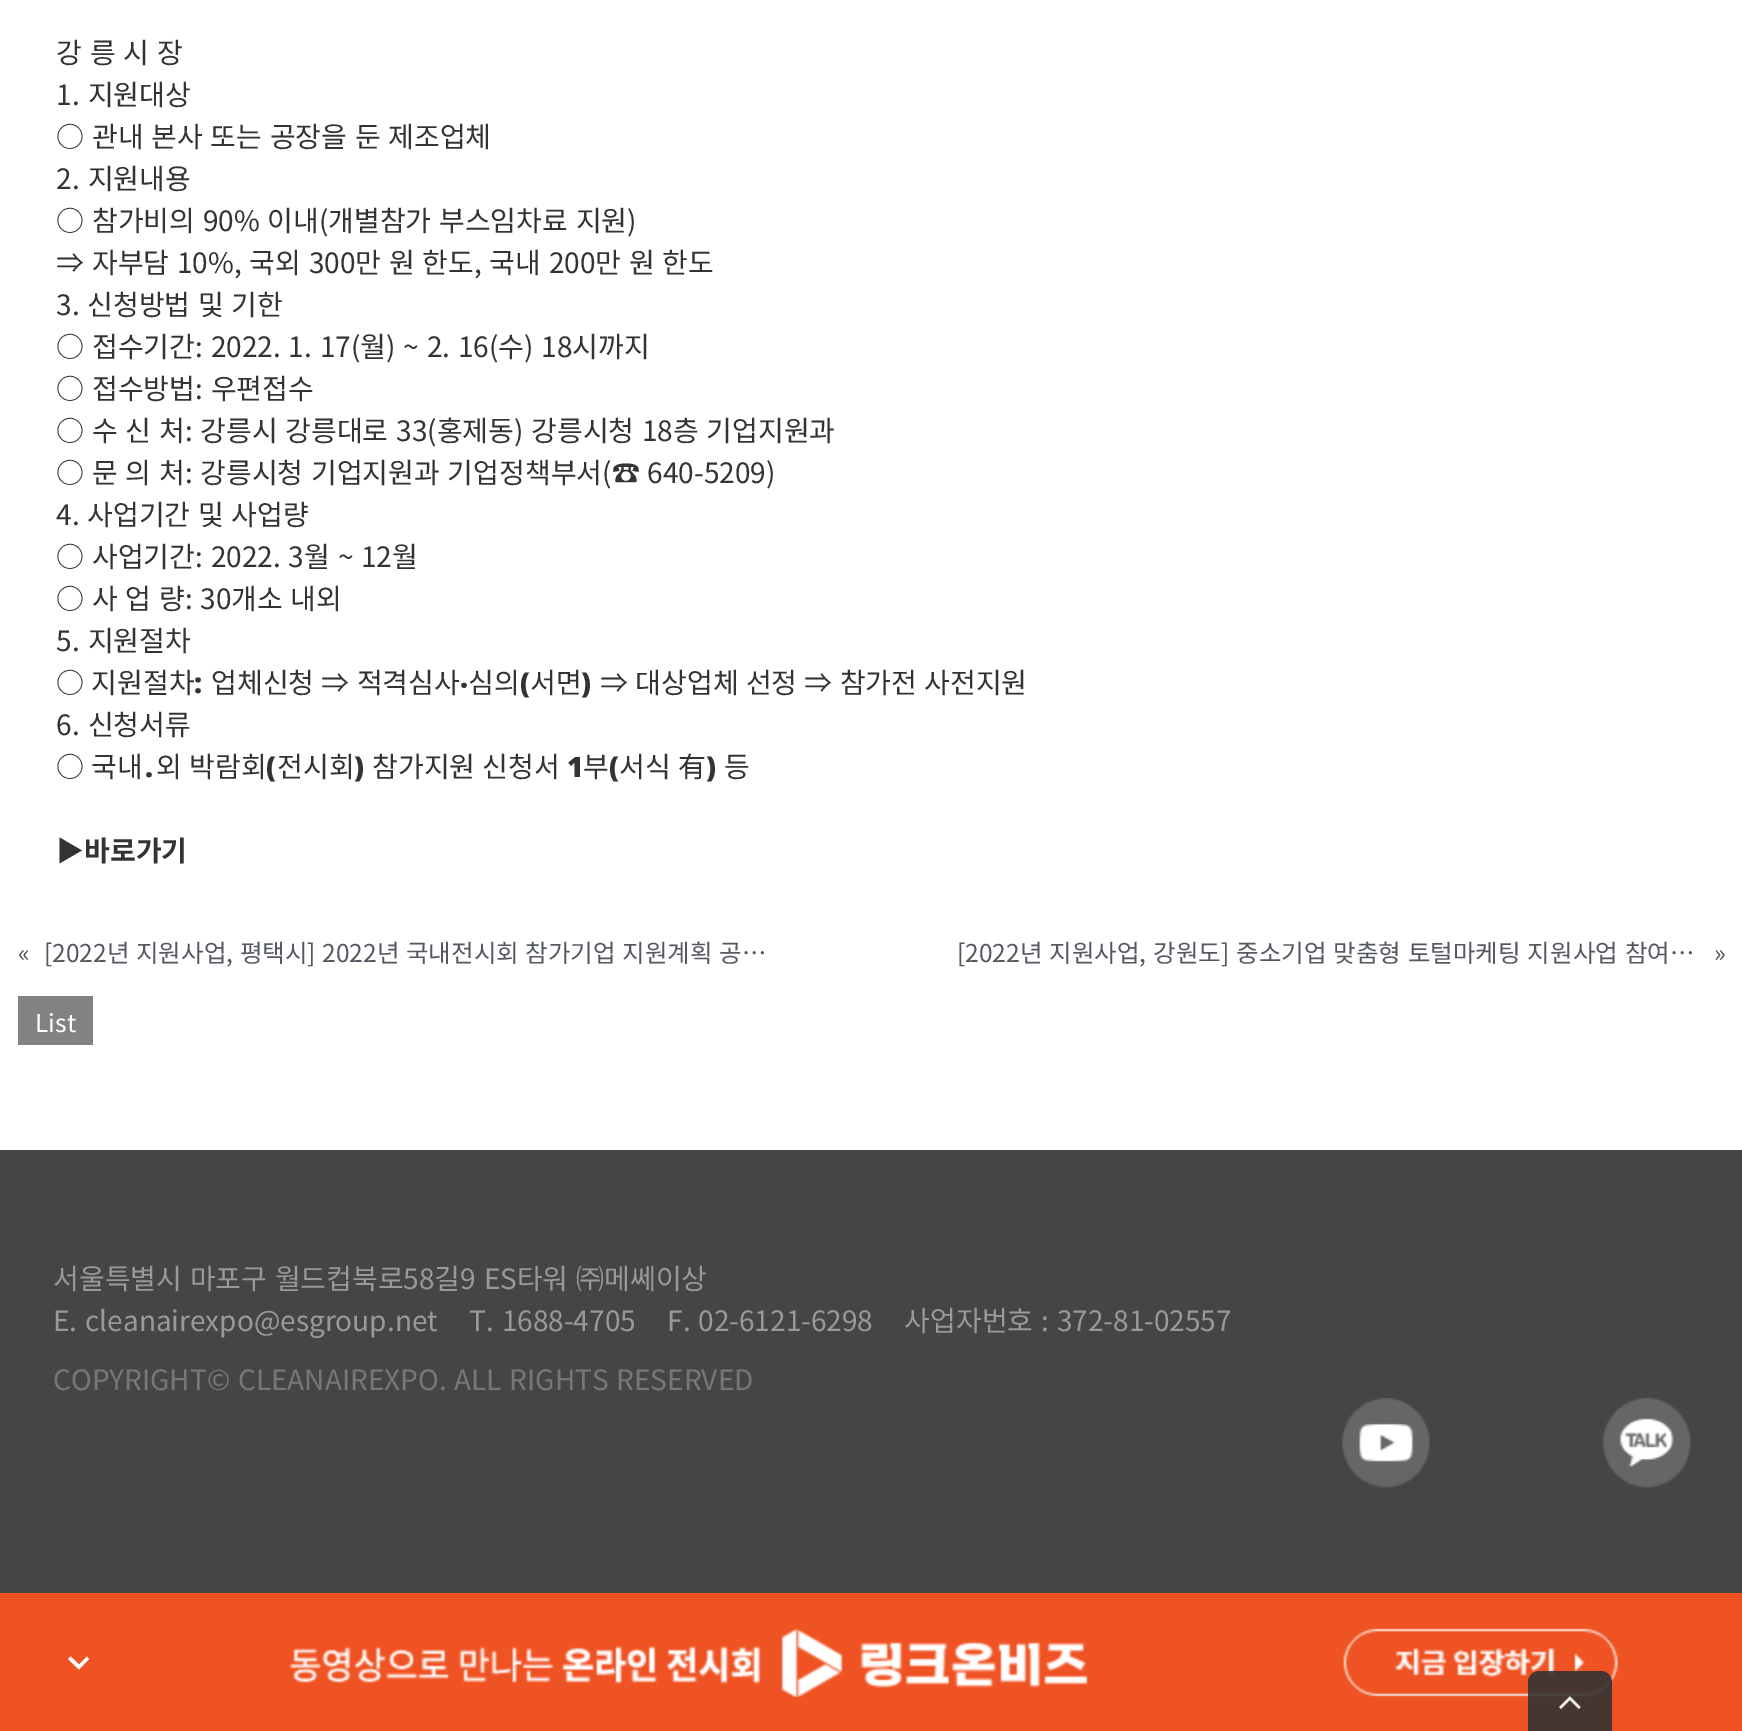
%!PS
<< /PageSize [1742 1731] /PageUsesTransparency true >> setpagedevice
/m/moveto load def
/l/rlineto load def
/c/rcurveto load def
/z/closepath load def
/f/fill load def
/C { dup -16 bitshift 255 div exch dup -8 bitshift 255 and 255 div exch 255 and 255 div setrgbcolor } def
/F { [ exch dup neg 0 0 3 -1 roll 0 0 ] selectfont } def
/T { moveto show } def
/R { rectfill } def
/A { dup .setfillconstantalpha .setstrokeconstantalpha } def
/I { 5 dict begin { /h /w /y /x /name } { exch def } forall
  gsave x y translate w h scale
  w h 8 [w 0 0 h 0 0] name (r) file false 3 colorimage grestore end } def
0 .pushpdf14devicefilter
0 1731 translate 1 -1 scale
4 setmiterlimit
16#FFFFFF C
0 0 1742 1731 R
/NotoSansKR-Regular 28 F
16#333333 C
56 63 m 1.5 0 32 (강 릉 시 장) widthshow
56 105 m 2 0 32 (1. 지원대상) widthshow
56 147 m 1.5 0 32 (○ 관내 본사 또는 공장을 둔 제조업체) widthshow
56 189 m 2 0 32 (2. 지원내용) widthshow
56 231 m 1.5 0 32 (○ 참가비의 90% 이내\(개별참가 부스임차료 지원\)) widthshow
56 273 m 1.5 0 32 (⇒ 자부담 10%, 국외 300만 원 한도, 국내 200만 원 한도) widthshow
56 315 m 1.5 0 32 (3. 신청방법 및 기한) widthshow
56 357 m 1.6 0 32 (○ 접수기간: 2022. 1. 17\(월\) ~ 2. 16\(수\) 18시까지) widthshow
56 399 m 1.6 0 32 (○ 접수방법: 우편접수) widthshow
56 441 m 1.5 0 32 (○ 수 신 처: 강릉시 강릉대로 33\(홍제동\) 강릉시청 18층 기업지원과) widthshow
56 483 m 1.5 0 32 (○ 문 의 처: 강릉시청 기업지원과 기업정책부서\(☎ 640-5209\)) widthshow
56 525 m 1.5 0 32 (4. 사업기간 및 사업량) widthshow
56 567 m 1.6 0 32 (○ 사업기간: 2022. 3월 ~ 12월) widthshow
56 609 m 1.5 0 32 (○ 사 업 량: 30개소 내외) widthshow
56 651 m 2 0 32 (5. 지원절차) widthshow
56 693 m 1 0 32 (○ 지원절차) widthshow
/NotoSans-Black 28 F
(:) 194 693 T
/NotoSansKR-Regular 28 F
211 693 m 1 0 32 (업체신청 ⇒ 적격심사) widthshow
/NotoSans-Black 28 F
(‧) 460 693 T
/NotoSansKR-Regular 28 F
(심의) 468 693 T
/NotoSans-Black 28 F
(\() 520 693 T
/NotoSansKR-Regular 28 F
(서면) 530 693 T
/NotoSans-Black 28 F
(\)) 581 693 T
/NotoSansKR-Regular 28 F
600 693 m 1 0 32 (⇒ 대상업체 선정 ⇒ 참가전 사전지원) widthshow
56 735 m 2 0 32 (6. 신청서류) widthshow
56 777 m 1 0 32 (○ 국내) widthshow
/NotoSans-Black 28 F
(․) 142 777 T
/NotoSansKR-Regular 28 F
156 777 m 1 0 32 (외 박람회) widthshow
/NotoSans-Black 28 F
(\() 266 777 T
/NotoSansKR-Regular 28 F
(전시회) 277 777 T
/NotoSans-Black 28 F
(\)) 354 777 T
/NotoSansKR-Regular 28 F
372 777 m 1 0 32 (참가지원 신청서) widthshow
/NotoSans-Black 28 F
(1) 567 777 T
/NotoSansKR-Regular 28 F
(부) 583 777 T
/NotoSans-Black 28 F
(\() 609 777 T
/NotoSansKR-Regular 28 F
619 777 m 1 0 32 (서식 有) widthshow
/NotoSans-Black 28 F
(\)) 706 777 T
/NotoSansKR-Regular 28 F
(등) 724 777 T
/NotoSansKR-Bold 28 F
(▶바로가기) 56 861 T
/NotoSansKR-Regular 24.5 F
16#545861 C
(«) 18 962 T
44 962 m 1.25 0 32 ([2022년 지원사업, 평택시] 2022년 국내전시회 참가기업 지원계획 공…) widthshow
957 962 m 1.5 0 32 ([2022년 지원사업, 강원도] 중소기업 맞춤형 토털마케팅 지원사업 참여…) widthshow
(») 1714 962 T
16#828282 C
18 996 75 49 R
16#FFFFFF C
(List) 35 1032 T
16#454545 C
0 1150 1742 443 R
/NotoSansKR-Regular 28 F
16#999999 C
53 1289 m 1.5 0 32 (서울특별시 마포구 월드컵북로58길9 ES타워 ㈜메쎄이상) widthshow
(E.) 53 1331 T
85 1331 m 1.6 0 32 (cleanairexpo@esgroup.net    T. 1688-4705    F. 02-6121-6298    사업자번호 : 372-81-02557) widthshow
16#777777 C
53 1390 m 1.5 0 32 (COPYRIGHT© CLEANAIREXPO. ALL RIGHTS RESERVED) widthshow
(1.rgb) 1342 1398 88 90 I
(2.rgb) 1602 1398 89 90 I
16#F05323 C
0 1593 1742 138 R
16#FFFFFF C
87 1656.5 m -8 8 l -8.5 -8 l -2.5 2.5 l 11 10.5 l 10 -10.5 l z f
(3.rgb) 289 1628 799 69 I
(4.rgb) 1343 1628 275 69 I
0.9 A
16#333333 C
1539 1671 m 62 0 l 6 0 11 5 11 11 c 0 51 l -84 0 l 0 -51 l 0 -6 5 -11 11 -11 c z f
1 A
(5.rgb) 1559 1696 22 13 I
.poppdf14devicefilter showpage
